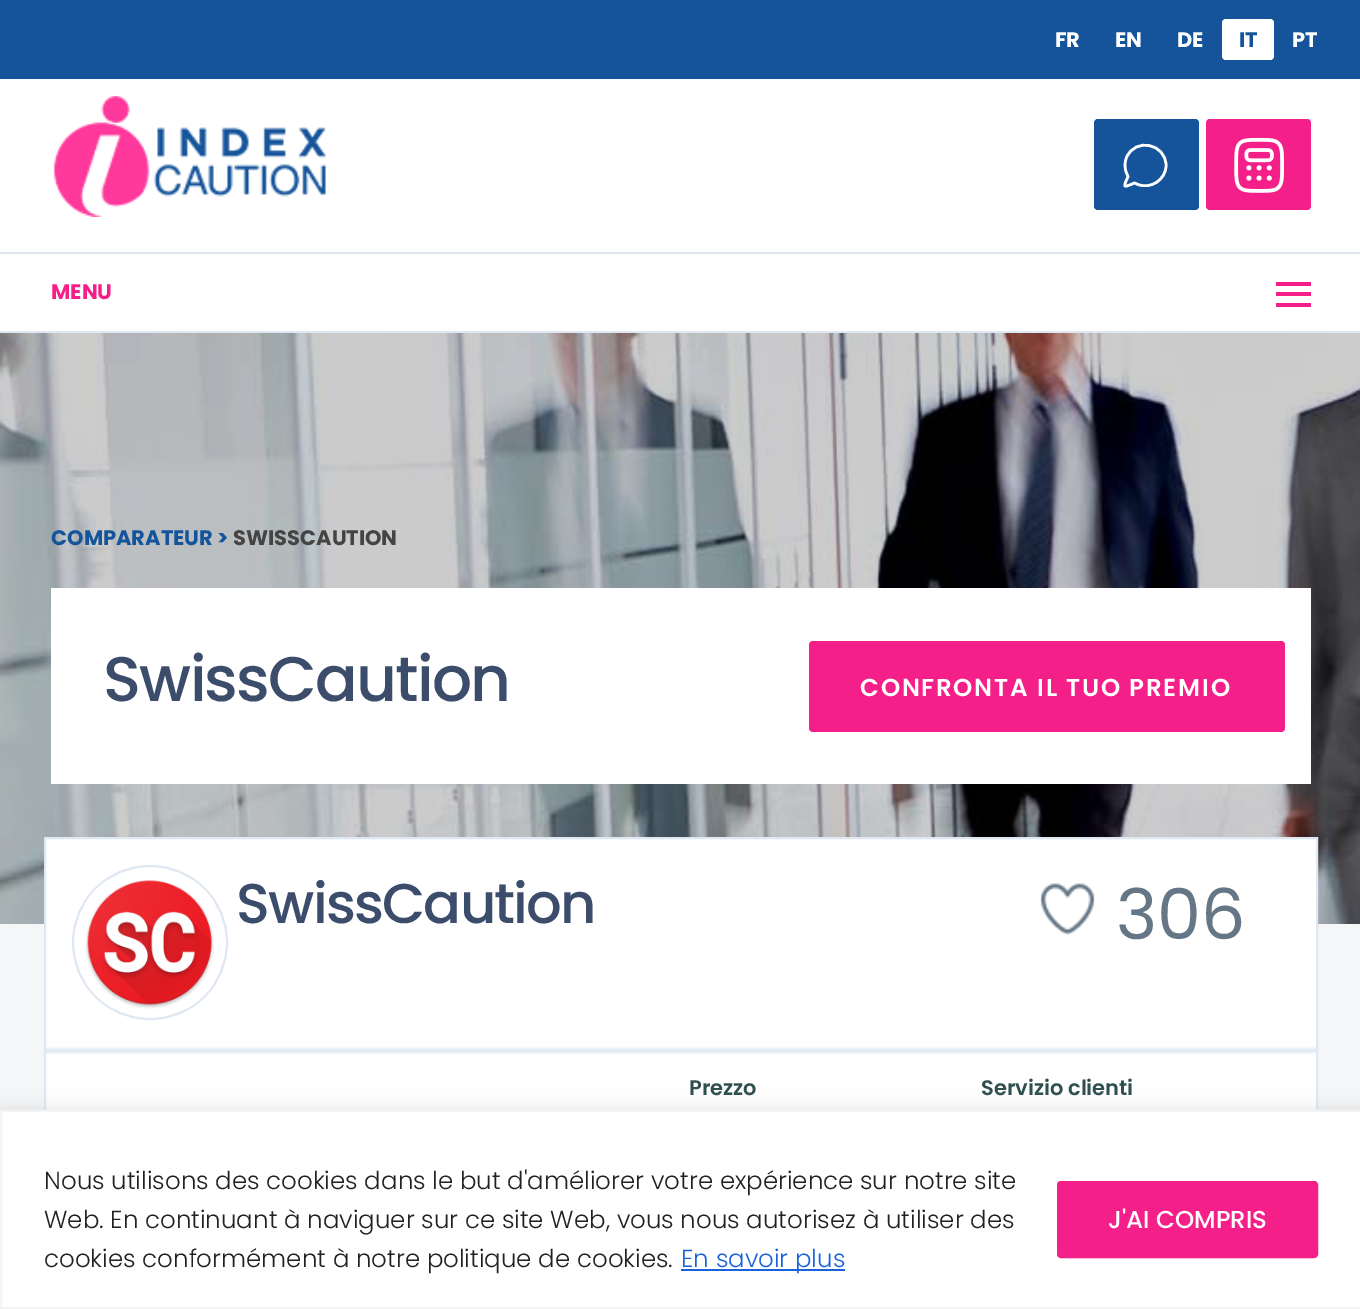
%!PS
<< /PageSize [1360 1309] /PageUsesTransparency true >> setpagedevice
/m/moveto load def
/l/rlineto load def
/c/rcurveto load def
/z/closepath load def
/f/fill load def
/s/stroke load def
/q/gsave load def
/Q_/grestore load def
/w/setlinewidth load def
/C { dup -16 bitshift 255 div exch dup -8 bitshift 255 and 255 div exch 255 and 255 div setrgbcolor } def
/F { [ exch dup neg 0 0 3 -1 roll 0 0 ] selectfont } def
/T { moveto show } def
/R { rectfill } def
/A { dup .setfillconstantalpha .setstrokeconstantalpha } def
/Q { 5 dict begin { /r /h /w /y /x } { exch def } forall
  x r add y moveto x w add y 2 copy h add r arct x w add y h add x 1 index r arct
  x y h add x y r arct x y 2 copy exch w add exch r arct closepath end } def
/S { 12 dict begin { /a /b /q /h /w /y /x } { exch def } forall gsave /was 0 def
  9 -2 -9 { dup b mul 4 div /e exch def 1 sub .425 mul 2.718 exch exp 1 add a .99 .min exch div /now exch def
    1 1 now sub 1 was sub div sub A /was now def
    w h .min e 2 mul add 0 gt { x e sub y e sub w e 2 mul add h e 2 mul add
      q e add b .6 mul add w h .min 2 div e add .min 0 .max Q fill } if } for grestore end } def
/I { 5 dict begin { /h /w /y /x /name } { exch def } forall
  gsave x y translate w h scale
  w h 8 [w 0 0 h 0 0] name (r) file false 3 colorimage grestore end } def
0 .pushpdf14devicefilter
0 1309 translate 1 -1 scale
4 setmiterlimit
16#F4F6F8 C
0 0 1360 1309 R
16#15549A C
0 0 1360 79 R
/Poppins-Bold 21 F
16#FFFFFF C
(FR) 1055 47 T
(EN) 1115 47 T
(DE) 1177 47 T
1222 19 52 41 4 Q f
16#14549A C
(IT) 1239 47 T
16#FFFFFF C
(PT) 1292 47 T
0 79 1360 252 R
(1.rgb) 53 96 273 121 I
16#15549A C
1094 119 105 91 4 Q f
16#FFFFFF C
2.6 w
1 setlinejoin
1166 165.5 m 0 14 -15 24 -28 19 c -3.5 -1.5 l -1.5 .5 -8.5 4 -9.5 3 c -1 -1.5 2.5 -8 3 -9.5 c -1.5 -3.5 l -2 -5 -2 -10.5 0 -15.5 c 8.5 -20.5 39.5 -14 39.5 8 c z s
16#F51F8A C
1206 119 105 91 4 Q f
(2.rgb) 1234 137 50 56 I
16#DEE7F2 C
0 252 1360 2 R
0 331 1360 2 R
16#F51F8A C
(MENU) 51 299 T
1276 282 35 4 R
1276 292 35 4 R
1276 303 35 4 R
(3.rgb) 0 333 1360 591 I
16#14549A C
(COMPARATEUR >) 51 545 T
16#444444 C
(SWISSCAUTION) 233 545 T
16#FFFFFF C
51 588 1260 196 R
/Poppins-Medium 63 F
16#3C4D6B C
103 701 m -1.75 0 (SwissCaution) ashow
16#F51F8A C
809 641 476 91 4 Q f
/Poppins-SemiBold 24.5 F
16#FFFFFF C
860 696 m 1.75 0 (CONFRONTA IL TUO PREMIO) ashow
q 46 839 m 1270 0 l 0 271 l -1270 0 l z clip newpath
<< /ShadingType 2 /ColorSpace /DeviceRGB /Coords [681 836 681 1265] /Extend [true true] /Function << /FunctionType 3 /Domain [0 1] /Functions [<< /FunctionType 2 /Domain [0 1] /C0 [1 1 1] /C1 [1 1 1] /N 1 >> << /FunctionType 2 /Domain [0 1] /C0 [1 1 1] /C1 [.871 .906 .949] /N 1 >> << /FunctionType 2 /Domain [0 1] /C0 [.871 .906 .949] /C1 [1 1 1] /N 1 >> << /FunctionType 2 /Domain [0 1] /C0 [1 1 1] /C1 [1 1 1] /N 1 >>] /Bounds [.49 .5 .51] /Encode [0 1 0 1 0 1 0 1] >> >> shfill Q_
16#DEE7F2 C
2 w
0 setlinejoin
45 838 1272 426 rectstroke
73 866 154 153 76.5 Q s
(4.rgb) 85 880 129 129 I
/Poppins-Medium 56 F
16#3C4D6B C
236 923 m -1.75 0 (SwissCaution) ashow
(5.rgb) 1040 883 55 52 I
/Poppins-Regular 70 F
16#657786 C
(306) 1116 939 T
/Poppins-SemiBold 21 F
16#2F4F4F C
(Prezzo) 689 1095 T
(Servizio clienti) 981 1095 T
16#ACABAB C
0 1108 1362 199 0 9 .3 S
16#FFFFFF C
1 1111 m 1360 0 l 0 197 l -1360 0 l z q f Q_
16#F4F4F4 C
s
/Poppins-Light 24.5 F
16#212121 C
(Nous utilisons des cookies dans le but d'améliorer votre expérience sur notre site) 44 1189 T
(Web. En continuant à naviguer sur ce site Web, vous nous autorisez à utiliser des) 44 1228 T
(cookies conformément à notre politique de cookies.) 44 1267 T
16#1863DC C
681 1269 164 2 R
(En savoir plus) 681 1267 T
16#F51F8A C
1059 1183 257 73 2 Q q f Q_
4 w
s
/Poppins-Medium 24.5 F
16#FFFFFF C
(J'AI COMPRIS) 1108 1228 T
.poppdf14devicefilter showpage
